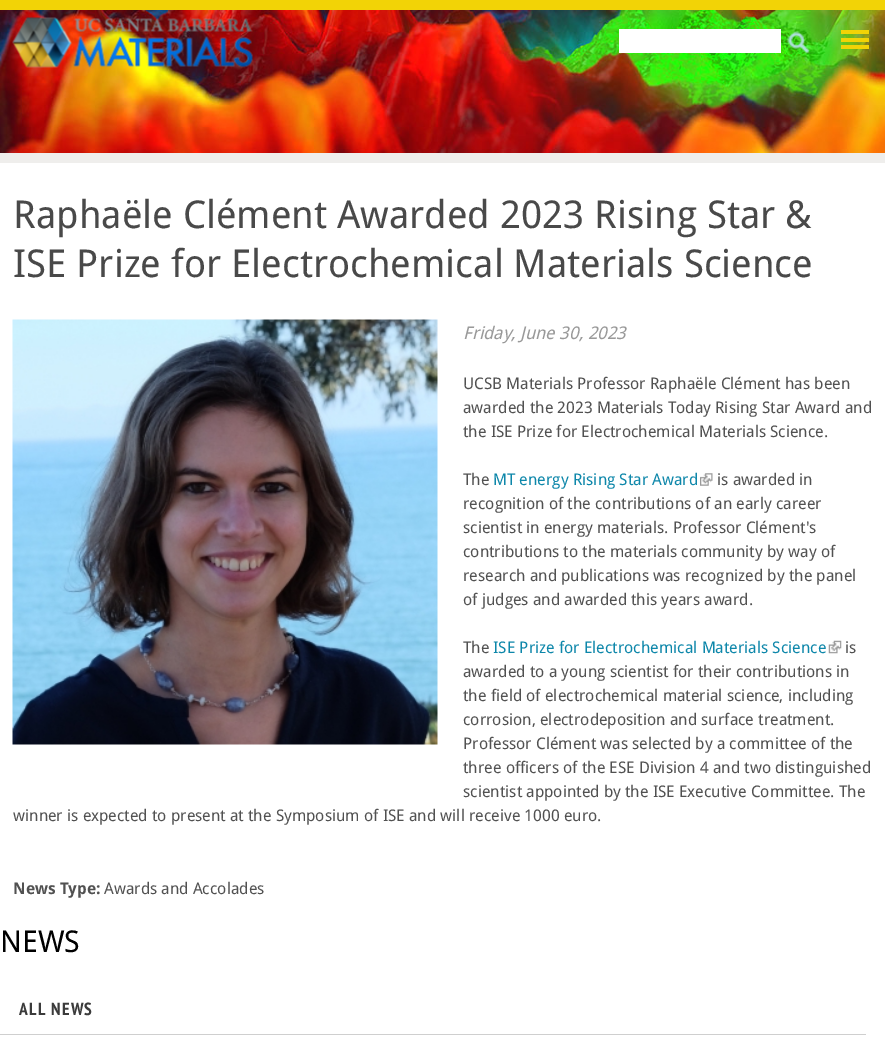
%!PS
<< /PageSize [885 1053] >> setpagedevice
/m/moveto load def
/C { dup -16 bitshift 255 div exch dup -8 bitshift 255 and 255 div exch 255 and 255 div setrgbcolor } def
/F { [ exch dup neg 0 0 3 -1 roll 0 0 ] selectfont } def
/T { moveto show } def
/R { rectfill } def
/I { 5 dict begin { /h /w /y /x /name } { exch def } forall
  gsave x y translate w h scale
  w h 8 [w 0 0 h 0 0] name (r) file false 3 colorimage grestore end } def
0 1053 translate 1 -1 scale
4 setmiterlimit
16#FFFFFF C
0 0 885 1053 R
16#F2D306 C
0 0 885 10 R
(1.rgb) 0 10 885 143 I
841 30 28 4 R
841 38 28 4 R
841 45 28 4 R
(2.rgb) 12 17 241 51 I
16#FFFFFF C
619 29 162 24 R
(3.rgb) 787 31 23 23 I
16#EFEEEC C
0 153 885 10 R
/DroidSans-Regular 38.4 F
16#494949 C
(Raphaële Clément Awarded 2023 Rising Star &) 13 228 T
(ISE Prize for Electrochemical Materials Science) 13 277 T
(4.rgb) 12 319 426 426 I
/DroidSans-Italic 17.5 F
16#999999 C
(Friday, June 30, 2023) 463 339 T
/DroidSans-Regular 16 F
16#515151 C
(UCSB Materials Professor Raphaële Clément has been) 463 389 T
(awarded the 2023 Materials Today Rising Star Award and) 463 413 T
(the ISE Prize for Electrochemical Materials Science.) 463 437 T
(The) 463 485 T
16#0D87AA C
(MT energy Rising Star Award) 493 485 T
(5.rgb) 700 473 13 13 I
16#515151 C
(is awarded in) 717 485 T
(recognition of the contributions of an early career) 463 509 T
(scientist in energy materials. Professor Clément's) 463 533 T
(contributions to the materials community by way of) 463 557 T
(research and publications was recognized by the panel) 463 581 T
(of judges and awarded this years award.) 463 605 T
(The) 463 653 T
16#0D87AA C
(ISE Prize for Electrochemical Materials Science) 493 653 T
(6.rgb) 828 640 14 14 I
16#515151 C
(is) 845 653 T
(awarded to a young scientist for their contributions in) 463 677 T
(the field of electrochemical material science, including) 463 701 T
(corrosion, electrodeposition and surface treatment.) 463 725 T
(Professor Clément was selected by a committee of the) 463 749 T
(three officers of the ESE Division 4 and two distinguished) 463 773 T
(scientist appointed by the ISE Executive Committee. The) 463 797 T
(winner is expected to present at the Symposium of ISE and will receive 1000 euro.) 13 821 T
/DroidSans-Bold 16 F
(News Type:) 13 894 T
/DroidSans-Regular 16 F
(Awards and Accolades) 104 894 T
/DroidSans-Regular 30 F
16#000000 C
(NEWS) 0 952 T
16#CFCFCF C
0 1034 866 1 R
/PTSansNarrow-Bold 17.5 F
16#3B3B3B C
19 1015 m 1.25 0 (ALL NEWS) ashow
showpage
